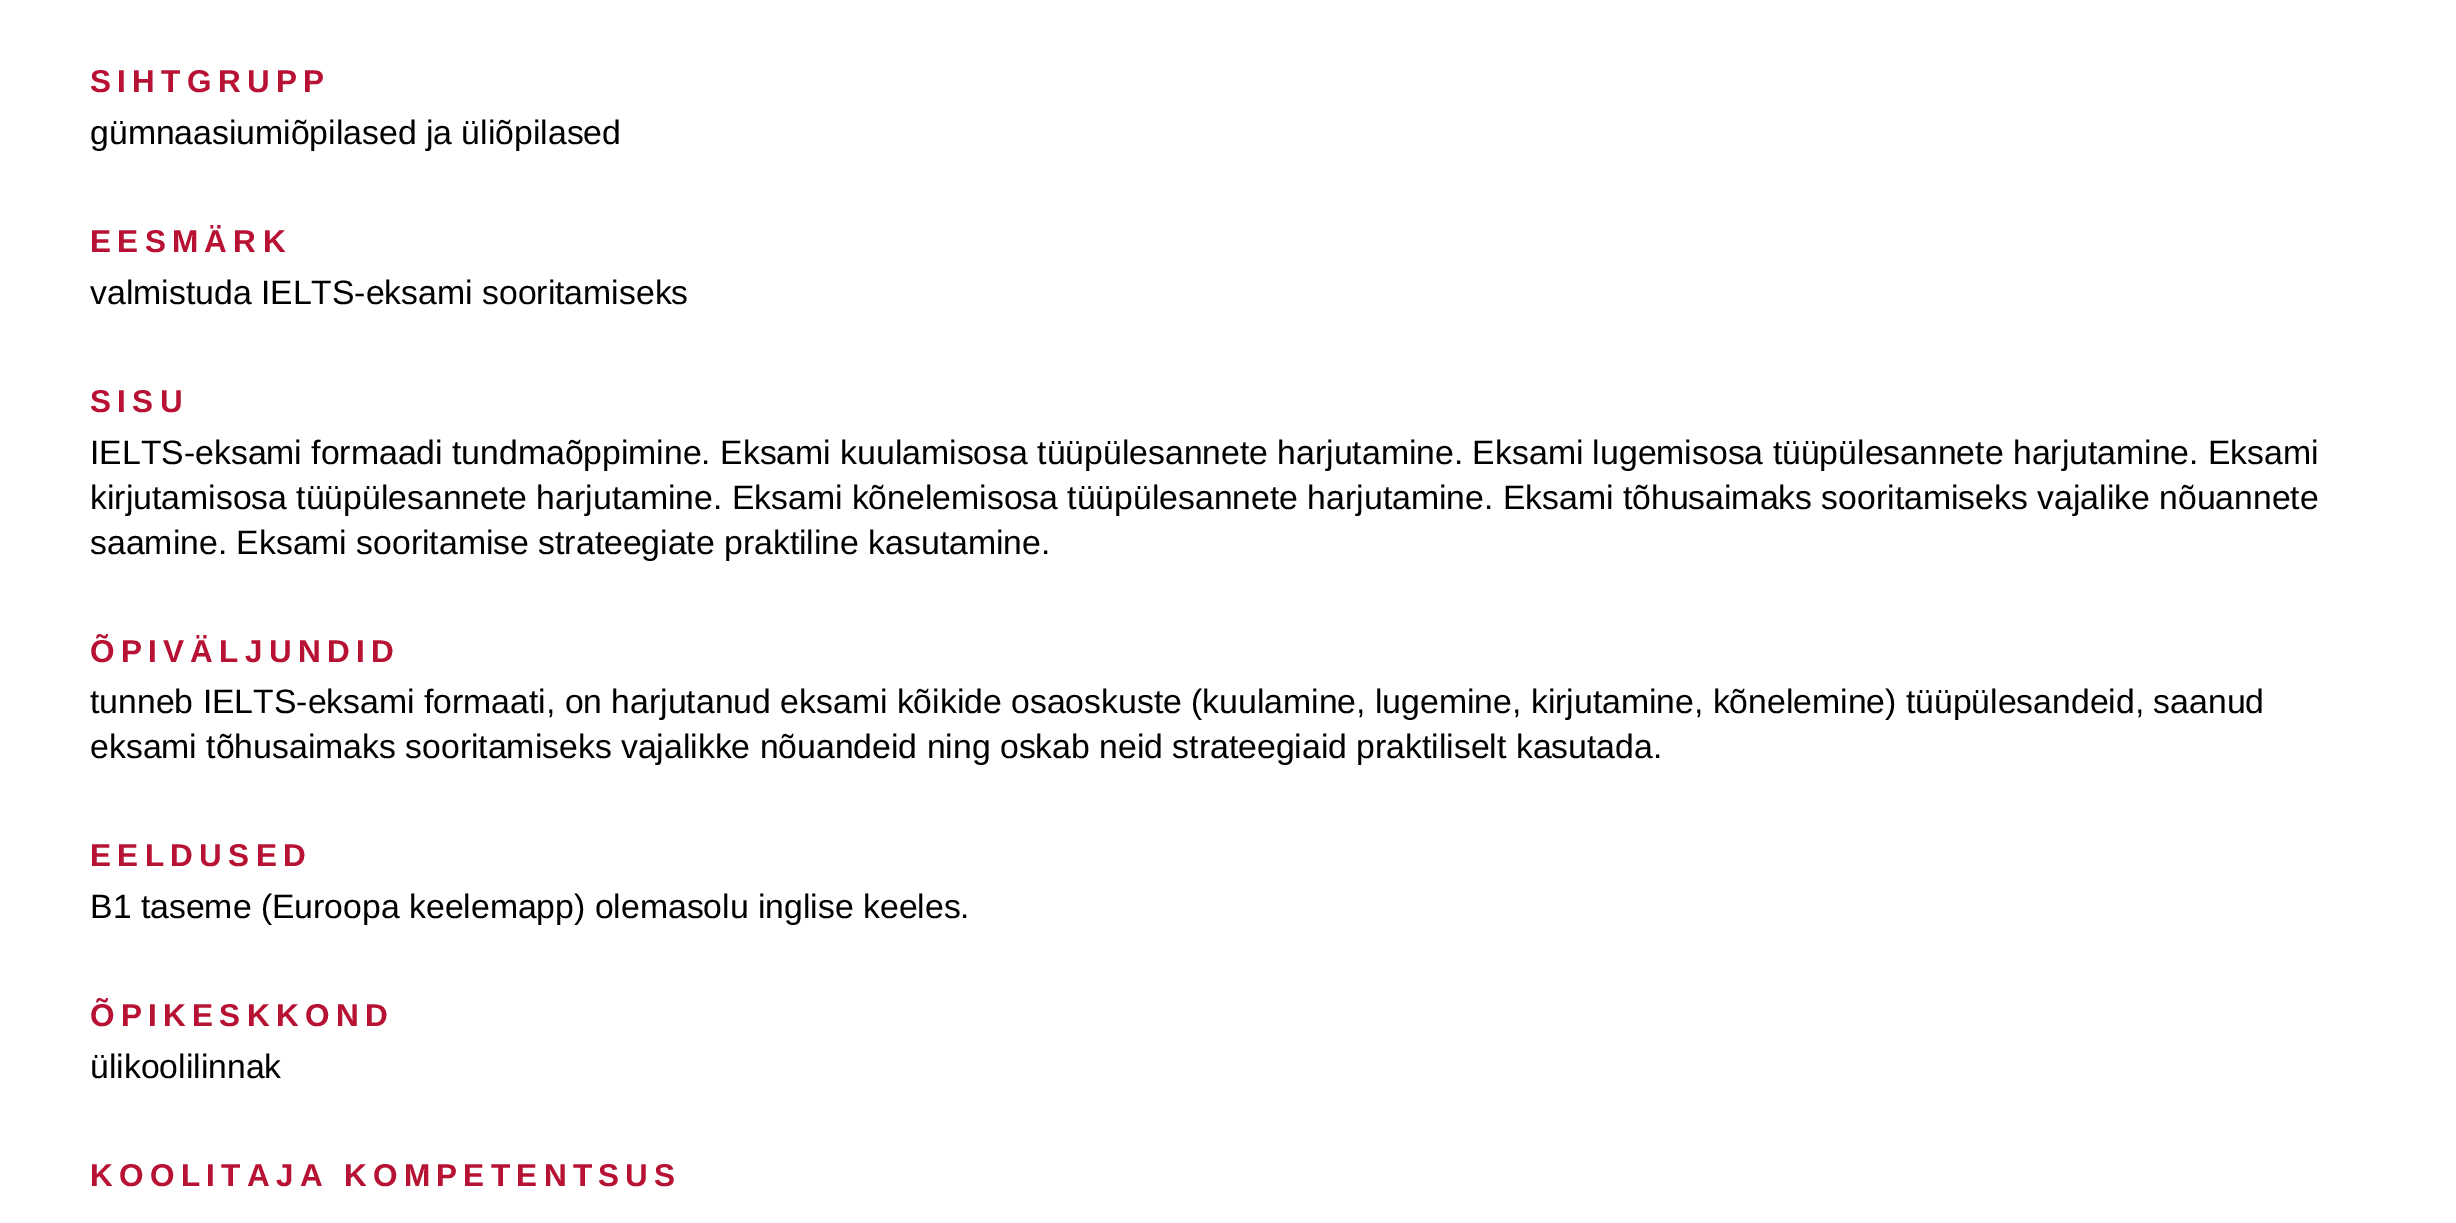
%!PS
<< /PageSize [2456 1223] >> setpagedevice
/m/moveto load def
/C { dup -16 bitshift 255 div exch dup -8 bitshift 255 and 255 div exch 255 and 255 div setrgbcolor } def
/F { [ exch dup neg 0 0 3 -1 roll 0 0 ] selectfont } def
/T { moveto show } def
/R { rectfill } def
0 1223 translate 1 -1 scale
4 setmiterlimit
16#FFFFFF C
0 0 2456 1223 R
/LiberationSans-Bold 31.5 F
16#B71234 C
90 92 m 6.3 0 (SIHTGRUPP) ashow
/LiberationSans-Regular 33.75 F
16#000000 C
(gümnaasiumiõpilased ja üliõpilased) 90 144 T
/LiberationSans-Bold 31.5 F
16#B71234 C
90 252 m 6.3 0 (EESMÄRK) ashow
/LiberationSans-Regular 33.75 F
16#000000 C
(valmistuda IELTS-eksami sooritamiseks) 90 304 T
/LiberationSans-Bold 31.5 F
16#B71234 C
90 412 m 6.3 0 (SISU) ashow
/LiberationSans-Regular 33.75 F
16#000000 C
(IELTS-eksami formaadi tundmaõppimine. Eksami kuulamisosa tüüpülesannete harjutamine. Eksami lugemisosa tüüpülesannete harjutamine. Eksami) 90 464 T
(kirjutamisosa tüüpülesannete harjutamine. Eksami kõnelemisosa tüüpülesannete harjutamine. Eksami tõhusaimaks sooritamiseks vajalike nõuannete) 90 509 T
(saamine. Eksami sooritamise strateegiate praktiline kasutamine.) 90 554 T
/LiberationSans-Bold 31.5 F
16#B71234 C
90 662 m 6.3 0 (ÕPIVÄLJUNDID) ashow
/LiberationSans-Regular 33.75 F
16#000000 C
(tunneb IELTS-eksami formaati, on harjutanud eksami kõikide osaoskuste \(kuulamine, lugemine, kirjutamine, kõnelemine\) tüüpülesandeid, saanud) 90 713 T
(eksami tõhusaimaks sooritamiseks vajalikke nõuandeid ning oskab neid strateegiaid praktiliselt kasutada.) 90 758 T
/LiberationSans-Bold 31.5 F
16#B71234 C
90 866 m 6.3 0 (EELDUSED) ashow
/LiberationSans-Regular 33.75 F
16#000000 C
(B1 taseme \(Euroopa keelemapp\) olemasolu inglise keeles.) 90 918 T
/LiberationSans-Bold 31.5 F
16#B71234 C
90 1026 m 6.3 0 (ÕPIKESKKOND) ashow
/LiberationSans-Regular 33.75 F
16#000000 C
(ülikoolilinnak) 90 1078 T
/LiberationSans-Bold 31.5 F
16#B71234 C
90 1186 m 6.3 0 (KOOLITAJA KOMPETENTSUS) ashow
showpage
